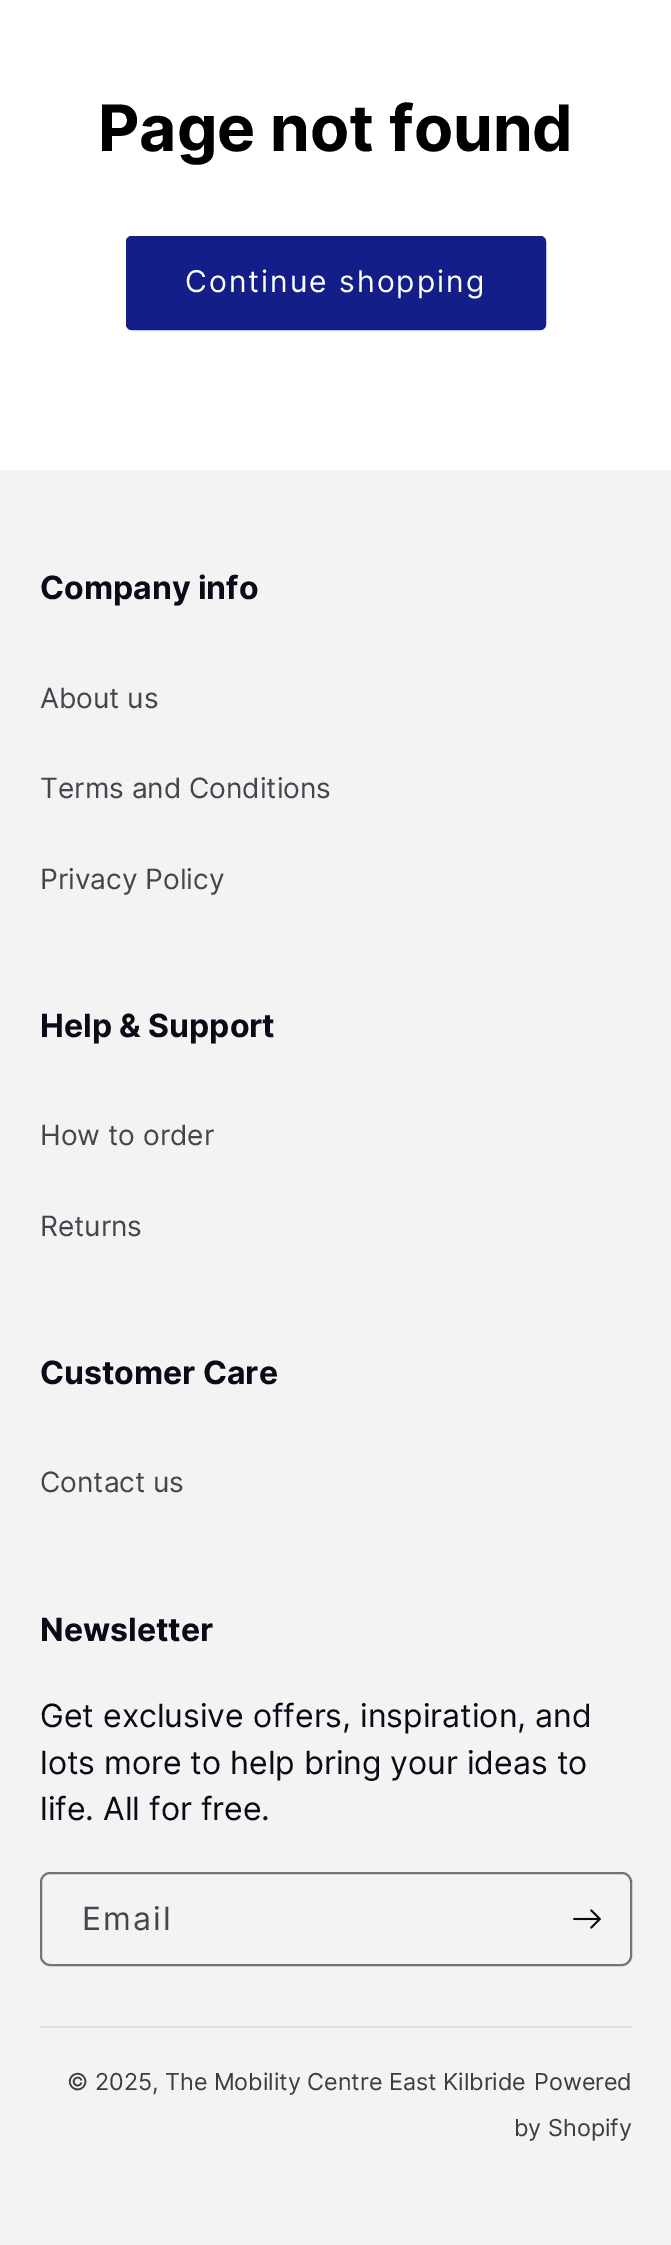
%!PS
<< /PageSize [671 2245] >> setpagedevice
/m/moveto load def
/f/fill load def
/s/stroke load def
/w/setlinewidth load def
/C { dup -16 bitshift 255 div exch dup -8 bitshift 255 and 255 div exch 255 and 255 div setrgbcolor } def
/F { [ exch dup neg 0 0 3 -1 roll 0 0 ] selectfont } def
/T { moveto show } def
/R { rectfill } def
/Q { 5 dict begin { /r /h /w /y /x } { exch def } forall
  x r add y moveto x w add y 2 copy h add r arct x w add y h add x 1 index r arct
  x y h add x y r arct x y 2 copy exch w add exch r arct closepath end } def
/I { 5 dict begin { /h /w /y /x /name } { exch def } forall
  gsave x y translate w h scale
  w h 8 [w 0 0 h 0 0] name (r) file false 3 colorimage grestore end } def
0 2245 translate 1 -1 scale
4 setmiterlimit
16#FFFFFF C
0 0 671 2245 R
/Inter-Bold 64 F
16#000000 C
(Page not found) 98 151 T
16#131E88 C
126 236 420 94 6 Q f
2 w
127 237 418 92 5 Q s
/Inter-Regular 30 F
16#FFFFFF C
185 292 m 2 0 (Continue shopping) ashow
16#F3F3F3 C
0 470 671 1775 R
/Inter-Bold 32 F
16#090B16 C
(Company info) 40 599 T
/Inter-Regular 28 F
16#44454D C
(About us) 40 708 T
(Terms and Conditions) 40 798 T
(Privacy Policy) 40 889 T
/Inter-Bold 32 F
16#090B16 C
(Help & Support) 40 1037 T
/Inter-Regular 28 F
16#44454D C
(How to order) 40 1145 T
(Returns) 40 1236 T
/Inter-Bold 32 F
16#090B16 C
(Customer Care) 40 1384 T
/Inter-Regular 28 F
16#44454D C
(Contact us) 40 1492 T
/Inter-Bold 32 F
16#090B16 C
(Newsletter) 40 1641 T
/Inter-Regular 32 F
(Get exclusive offers, inspiration, and) 40 1727 T
(lots more to help bring your ideas to) 40 1774 T
(life. All for free.) 40 1820 T
16#727379 C
41 1873 590 92 9 Q s
16#44454D C
82 1930 m 2 0 (Email) ashow
(1.rgb) 573 1909 28 20 I
16#E0E0E1 C
40 2026 592 2 R
/Inter-Regular 23.3 F
16#373F41 C
(© 2025, The Mobility Centre East Kilbride) 67 2090 T
(Powered) 534 2090 T
(by Shopify) 514 2136 T
showpage
